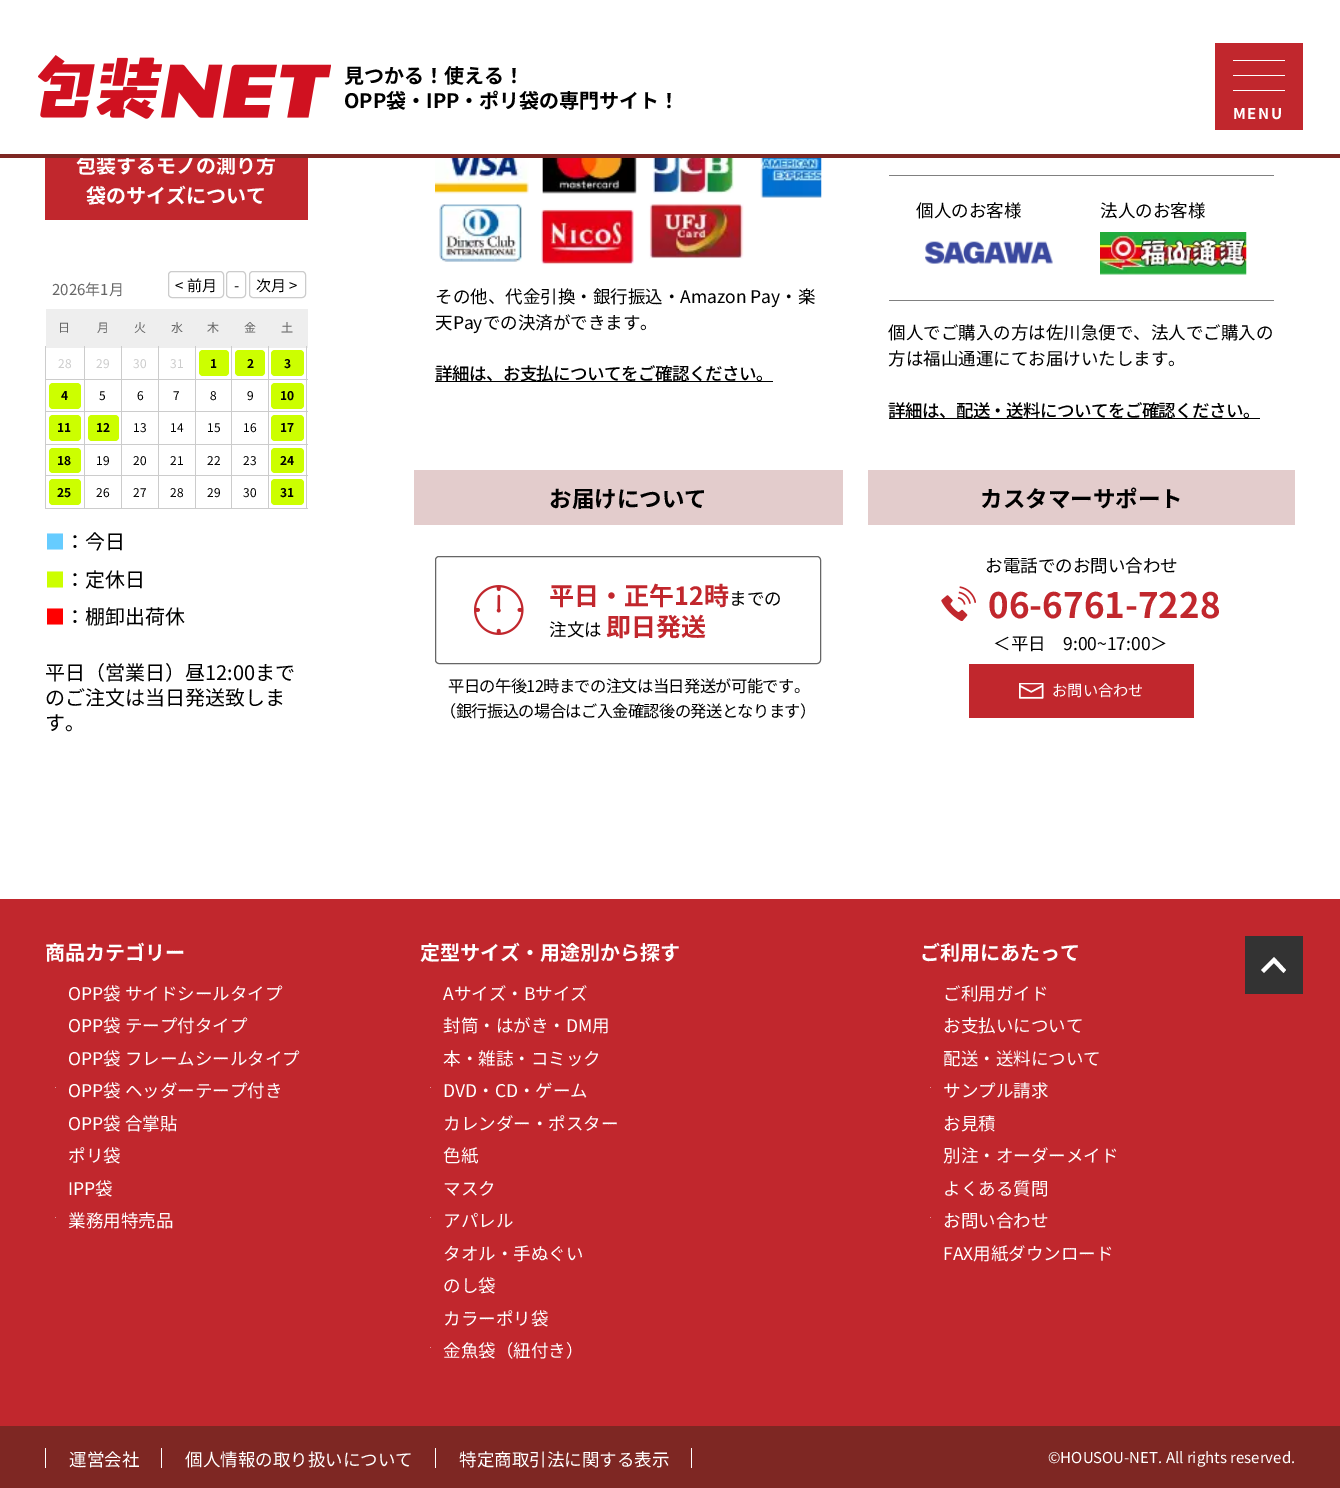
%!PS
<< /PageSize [1340 1488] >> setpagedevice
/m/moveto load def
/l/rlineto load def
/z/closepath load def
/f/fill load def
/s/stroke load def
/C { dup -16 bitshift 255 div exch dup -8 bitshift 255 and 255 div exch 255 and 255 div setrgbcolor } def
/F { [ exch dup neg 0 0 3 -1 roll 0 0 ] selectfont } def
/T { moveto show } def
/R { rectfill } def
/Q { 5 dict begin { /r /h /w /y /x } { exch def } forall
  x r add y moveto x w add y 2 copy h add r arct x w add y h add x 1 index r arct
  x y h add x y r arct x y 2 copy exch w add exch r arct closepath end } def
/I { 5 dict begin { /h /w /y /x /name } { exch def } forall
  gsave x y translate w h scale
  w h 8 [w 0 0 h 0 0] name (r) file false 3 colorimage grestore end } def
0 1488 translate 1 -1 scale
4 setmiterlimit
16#FFFFFF C
0 0 1340 1488 R
16#C1272D C
45 158 263 62 R
/NotoSansJP-Bold 20 F
16#FFFFFF C
(包装するモノの測り方) 76 173 T
16#7E2723 C
0 154 1340 4 R
(1.rgb) 38 55 293 64 I
16#000000 C
(見つかる！使える！) 344 83 T
(OPP袋・IPP・ポリ袋の専門サイト！) 344 108 T
16#C1272D C
1215 43 88 87 R
16#FFFFFF C
1233 75 52 1 R
1233 60 52 1 R
1233 90 52 1 R
/NotoSansJP-Bold 15 F
1233 119 m 1.5 0 (MENU) ashow
/NotoSansJP-Bold 20 F
(袋のサイズについて) 86 203 T
/NotoSansJP-Regular 15 F
16#666666 C
(2026年1月) 52 295 T
16#CCCCCC C
168.5 271.5 55 26 3.5 Q s
16#000000 C
(< 前月) 175 291 T
16#CCCCCC C
226.5 271.5 19 26 3.5 Q s
16#000000 C
(-) 234 291 T
16#CCCCCC C
249.5 271.5 56 26 3.5 Q s
16#000000 C
(次月 >) 256 291 T
16#EEEEEE C
46 309 262 39 R
/NotoSansJP-Regular 12 F
16#666666 C
(日) 58 332 T
(月) 97 332 T
(火) 134 332 T
(水) 171 332 T
(木) 207 332 T
(金) 244 332 T
(土) 281 332 T
16#EEEEEE C
45 346 1 1 R
16#CCCCCC C
306 346 1 163 R
268 508 40 1 R
268 475 1 34 R
268 475 40 1 R
268 444 1 32 R
268 444 40 1 R
268 411 1 34 R
268 411 40 1 R
268 379 1 34 R
268 379 40 1 R
268 346 1 34 R
231 508 38 1 R
231 475 1 34 R
231 475 38 1 R
231 444 1 32 R
231 444 38 1 R
231 411 1 34 R
231 411 38 1 R
231 379 1 34 R
231 379 38 1 R
231 346 1 34 R
195 508 38 1 R
195 475 1 34 R
195 475 38 1 R
195 444 1 32 R
195 444 38 1 R
195 411 1 34 R
195 411 38 1 R
195 379 1 34 R
195 379 38 1 R
195 346 1 34 R
158 508 38 1 R
158 475 1 34 R
158 475 38 1 R
158 444 1 32 R
158 444 38 1 R
158 411 1 34 R
158 411 38 1 R
158 379 1 34 R
158 379 38 1 R
158 346 1 34 R
121 508 38 1 R
121 475 1 34 R
121 475 38 1 R
121 444 1 32 R
121 444 38 1 R
121 411 1 34 R
121 411 38 1 R
121 379 1 34 R
121 379 38 1 R
121 346 1 34 R
84 508 39 1 R
84 475 1 34 R
84 475 39 1 R
84 444 1 32 R
84 444 39 1 R
84 411 1 34 R
84 411 39 1 R
84 379 1 34 R
84 379 39 1 R
84 346 1 34 R
45 508 40 1 R
45 475 1 34 R
45 475 40 1 R
45 444 1 32 R
45 444 40 1 R
45 411 1 34 R
45 411 40 1 R
45 379 1 34 R
45 379 40 1 R
45 346 1 34 R
(28) 58 368 T
(29) 96 368 T
(30) 133 368 T
(31) 170 368 T
16#CCFF00 C
199 350 30 26 4 Q f
/NotoSansJP-Bold 12 F
16#000000 C
(1) 210 368 T
16#CCFF00 C
235 350 30 26 4 Q f
16#000000 C
(2) 247 368 T
16#CCFF00 C
271 350 33 26 4 Q f
16#000000 C
(3) 284 368 T
16#CCFF00 C
49 383 32 26 4 Q f
16#000000 C
(4) 61 400 T
/NotoSansJP-Regular 12 F
(5) 99 400 T
(6) 137 400 T
(7) 173 400 T
(8) 210 400 T
(9) 247 400 T
16#CCFF00 C
271 383 33 26 4 Q f
/NotoSansJP-Bold 12 F
16#000000 C
(10) 280 400 T
16#CCFF00 C
49 415 32 26 4 Q f
16#000000 C
(11) 57 432 T
16#CCFF00 C
88 415 31 26 4 Q f
16#000000 C
(12) 96 432 T
/NotoSansJP-Regular 12 F
(13) 133 432 T
(14) 170 432 T
(15) 207 432 T
(16) 243 432 T
16#CCFF00 C
271 415 33 26 4 Q f
/NotoSansJP-Bold 12 F
16#000000 C
(17) 280 432 T
16#CCFF00 C
49 448 32 25 4 Q f
16#000000 C
(18) 57 465 T
/NotoSansJP-Regular 12 F
(19) 96 465 T
(20) 133 465 T
(21) 170 465 T
(22) 207 465 T
(23) 243 465 T
16#CCFF00 C
271 448 33 25 4 Q f
/NotoSansJP-Bold 12 F
16#000000 C
(24) 280 465 T
16#CCFF00 C
49 479 32 26 4 Q f
16#000000 C
(25) 57 497 T
/NotoSansJP-Regular 12 F
(26) 96 497 T
(27) 133 497 T
(28) 170 497 T
(29) 207 497 T
(30) 243 497 T
16#CCFF00 C
271 479 33 26 4 Q f
/NotoSansJP-Bold 12 F
16#000000 C
(31) 280 497 T
/NotoSansJP-Regular 20 F
16#66CCFF C
(■) 45 549 T
16#000000 C
(：今日) 65 549 T
16#CCFF00 C
(■) 45 587 T
16#000000 C
(：定休日) 65 587 T
16#FF0000 C
(■) 45 624 T
16#000000 C
(：棚卸出荷休) 65 624 T
(平日（営業日）昼12:00まで) 45 680 T
(のご注文は当日発送致しま) 45 705 T
(す。) 45 730 T
(2.rgb) 435 158 387 107 I
/NotoSansJP-Regular 17.5 F
(その他、代金引換・銀行振込・Amazon Pay・楽) 435 303 T
(天Payでの決済ができます。) 435 329 T
435 381 338 1 R
/NotoSansJP-Medium 17.5 F
435 380 m -.6 0 (詳細は、お支払についてをご確認ください。) ashow
16#808080 C
889 175 385 1 R
889 300 385 1 R
/NotoSansJP-Regular 17.5 F
16#000000 C
(個人のお客様) 916 217 T
(3.rgb) 925 241 128 23 I
(法人のお客様) 1100 217 T
(4.rgb) 1100 232 147 43 I
(個人でご購入の方は佐川急便で、法人でご購入の) 888 339 T
(方は福山通運にてお届けいたします。) 888 365 T
889 418 371 1 R
/NotoSansJP-Medium 17.5 F
888 417 m -.6 0 (詳細は、配送・送料についてをご確認ください。) ashow
16#E3CCCC C
414 470 429 55 R
/NotoSansJP-Bold 22.5 F
16#000000 C
(お届けについて) 549 507 T
16#666666 C
435.5 556.5 385 107 3.5 Q s
(5.rgb) 474 585 50 50 I
/NotoSansJP-Bold 25 F
16#C1272D C
(平日・正午12時) 549 605 T
/NotoSansJP-Regular 17.5 F
16#000000 C
(までの) 729 605 T
(注文は) 549 636 T
/NotoSansJP-Bold 25 F
16#C1272D C
(即日発送) 606 636 T
/NotoSansJP-Regular 16.25 F
16#000000 C
448 692 m -.6 0 (平日の午後12時までの注文は当日発送が可能です。) ashow
440 717 m -.6 0 (（銀行振込の場合はご入金確認後の発送となります）) ashow
16#E3CCCC C
868 470 427 55 R
/NotoSansJP-Bold 22.5 F
16#000000 C
(カスタマーサポート) 980 507 T
/NotoSansJP-Regular 17.5 F
(お電話でのお問い合わせ) 985 572 T
(6.rgb) 941 586 35 35 I
/NotoSansJP-Bold 35 F
16#C1272D C
(06-6761-7228) 988 618 T
/NotoSansJP-Regular 17.5 F
16#000000 C
(＜平日　9:00~17:00＞) 993 650 T
16#C1272D C
969 664 225 54 R
(7.rgb) 1019 683 25 16 I
/NotoSansJP-Regular 15.25 F
16#FFFFFF C
(お問い合わせ) 1052 696 T
16#C1272D C
0 899 1340 527 R
/NotoSansJP-Bold 20 F
16#FFFFFF C
(商品カテゴリー) 45 960 T
/NotoSansJP-Regular 17.5 F
(OPP袋 サイドシールタイプ) 68 1000 T
(OPP袋 テープ付タイプ) 68 1032 T
(OPP袋 フレームシールタイプ) 68 1065 T
16#E09396 C
55 1087 1 1 R
16#FFFFFF C
(OPP袋 ヘッダーテープ付き) 68 1097 T
(OPP袋 合掌貼) 68 1130 T
(ポリ袋) 68 1162 T
(IPP袋) 68 1195 T
16#E09396 C
55 1217 1 1 R
16#FFFFFF C
(業務用特売品) 68 1227 T
/NotoSansJP-Bold 20 F
(定型サイズ・用途別から探す) 420 960 T
/NotoSansJP-Regular 17.5 F
(Aサイズ・Bサイズ) 443 1000 T
(封筒・はがき・DM用) 443 1032 T
(本・雑誌・コミック) 443 1065 T
16#E09396 C
430 1087 1 1 R
16#FFFFFF C
(DVD・CD・ゲーム) 443 1097 T
(カレンダー・ポスター) 443 1130 T
(色紙) 443 1162 T
(マスク) 443 1195 T
16#E09396 C
430 1217 1 1 R
16#FFFFFF C
(アパレル) 443 1227 T
(タオル・手ぬぐい) 443 1260 T
(のし袋) 443 1292 T
(カラーポリ袋) 443 1325 T
16#E09396 C
430 1347 1 1 R
16#FFFFFF C
(金魚袋（紐付き）) 443 1357 T
/NotoSansJP-Bold 20 F
(ご利用にあたって) 920 960 T
/NotoSansJP-Regular 17.5 F
(ご利用ガイド) 943 1000 T
(お支払いについて) 943 1032 T
(配送・送料について) 943 1065 T
16#E09396 C
930 1087 1 1 R
16#FFFFFF C
(サンプル請求) 943 1097 T
(お見積) 943 1130 T
(別注・オーダーメイド) 943 1162 T
(よくある質問) 943 1195 T
16#E09396 C
930 1217 1 1 R
16#FFFFFF C
(お問い合わせ) 943 1227 T
(FAX用紙ダウンロード) 943 1260 T
16#7E2723 C
0 1426 1340 62 R
16#333333 C
1245 936 58 58 R
16#FFFFFF C
1286 970 m -2.5 3 l -9.5 -10 l -10 10 l -3 -3 l 13 -13 l z f
45 1448 1 20 R
(運営会社) 69 1466 T
161 1448 1 20 R
(個人情報の取り扱いについて) 185 1466 T
691 1448 1 20 R
435 1448 1 20 R
(特定商取引法に関する表示) 459 1466 T
/NotoSansJP-Regular 15 F
(©HOUSOU-NET. All rights reserved.) 1048 1463 T
showpage
